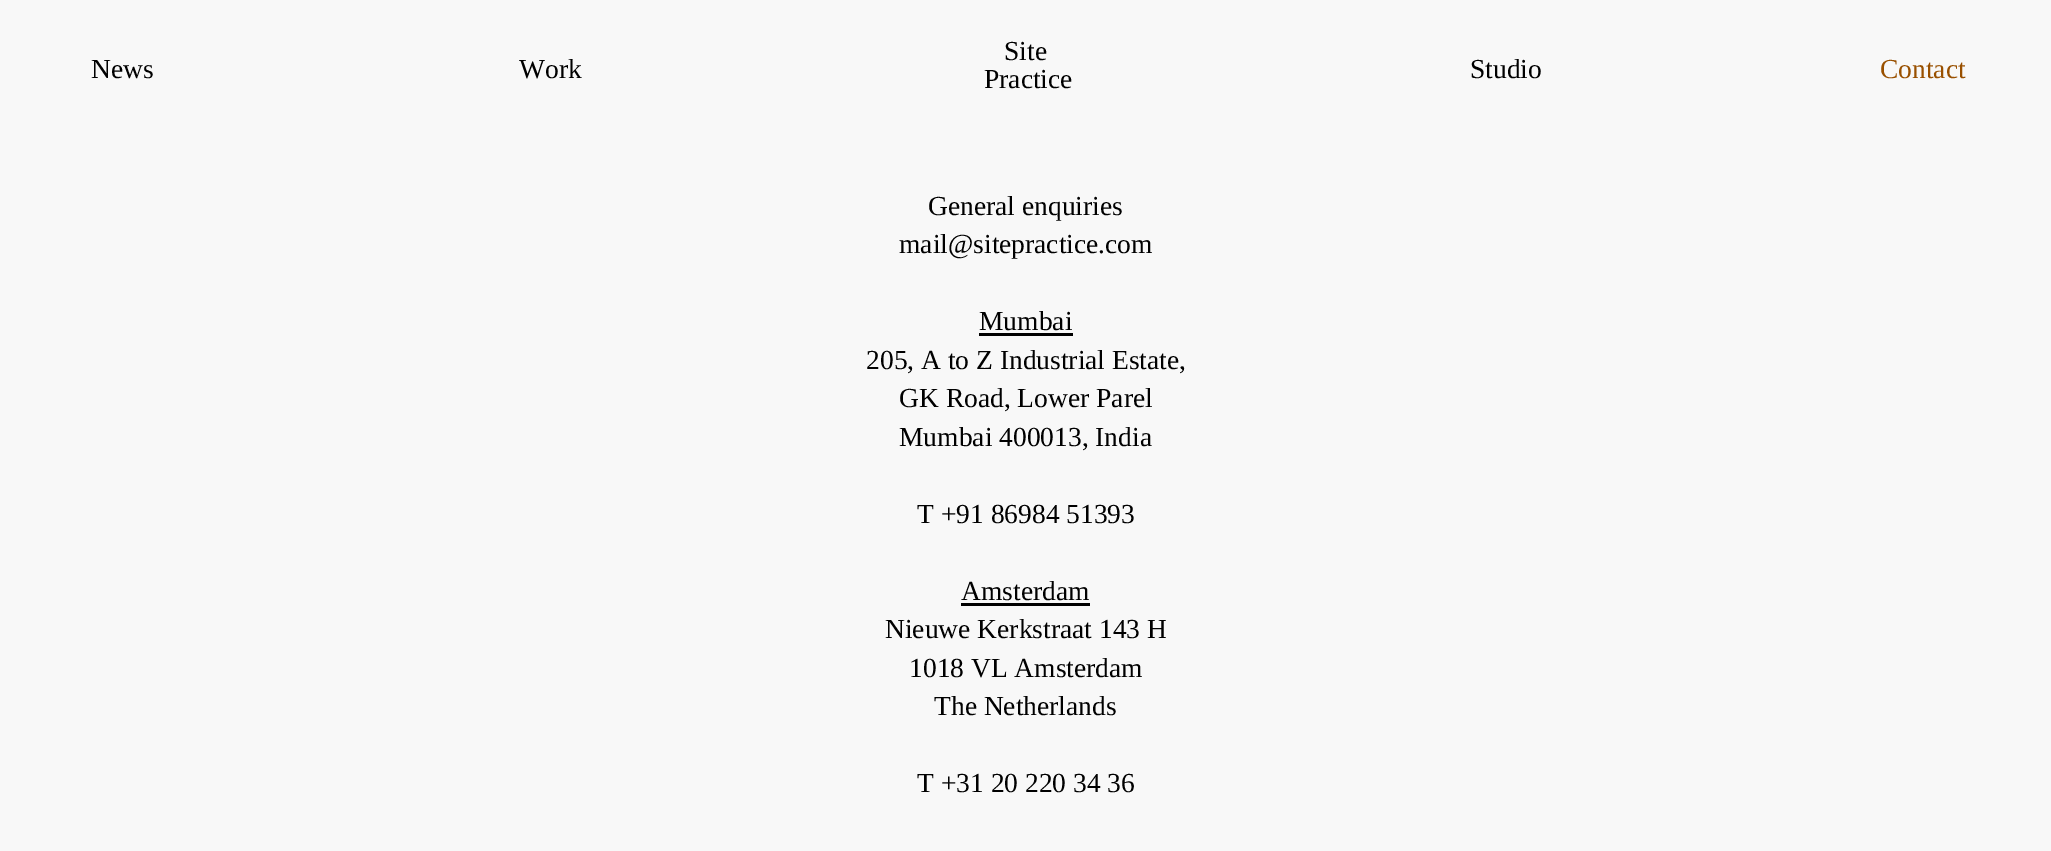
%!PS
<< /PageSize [2051 851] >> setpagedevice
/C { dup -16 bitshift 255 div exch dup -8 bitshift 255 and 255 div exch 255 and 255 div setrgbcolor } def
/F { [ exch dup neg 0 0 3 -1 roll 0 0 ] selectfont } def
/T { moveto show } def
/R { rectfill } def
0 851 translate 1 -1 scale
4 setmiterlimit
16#F8F8F8 C
0 0 2051 851 R
/LiberationSerif-Regular 27.5 F
16#000000 C
(Site) 1004 60 T
(Practice) 984 88 T
(News) 91 78 T
(Work) 519 78 T
(Studio) 1470 78 T
16#995000 C
(Contact) 1880 78 T
16#000000 C
(General enquiries) 928 215 T
(mail@sitepractice.com) 899 253 T
(Mumbai) 979 330 T
979 333 94 3 R
(205, A to Z Industrial Estate,) 866 369 T
(GK Road, Lower Parel) 899 407 T
(Mumbai 400013, India) 899 446 T
(T +91 86984 51393) 917 523 T
(Amsterdam) 961 600 T
961 603 129 3 R
(Nieuwe Kerkstraat 143 H) 885 638 T
(1018 VL Amsterdam) 909 677 T
(The Netherlands) 934 715 T
(T +31 20 220 34 36) 917 792 T
showpage
